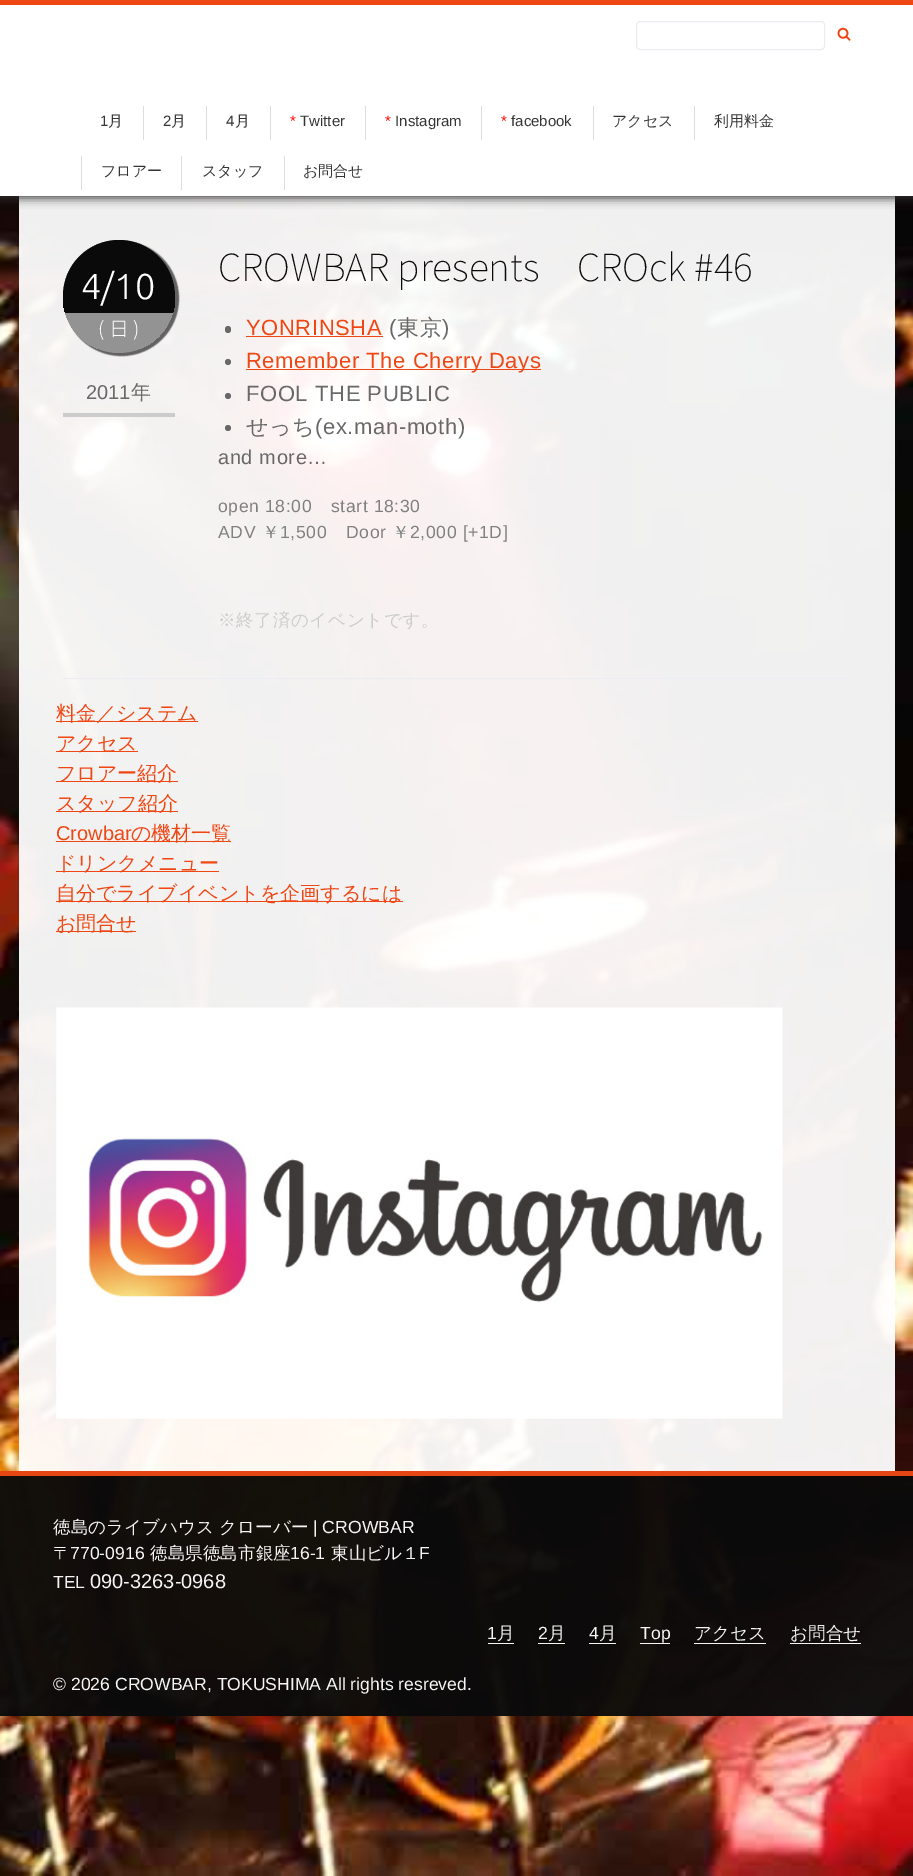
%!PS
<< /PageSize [913 1876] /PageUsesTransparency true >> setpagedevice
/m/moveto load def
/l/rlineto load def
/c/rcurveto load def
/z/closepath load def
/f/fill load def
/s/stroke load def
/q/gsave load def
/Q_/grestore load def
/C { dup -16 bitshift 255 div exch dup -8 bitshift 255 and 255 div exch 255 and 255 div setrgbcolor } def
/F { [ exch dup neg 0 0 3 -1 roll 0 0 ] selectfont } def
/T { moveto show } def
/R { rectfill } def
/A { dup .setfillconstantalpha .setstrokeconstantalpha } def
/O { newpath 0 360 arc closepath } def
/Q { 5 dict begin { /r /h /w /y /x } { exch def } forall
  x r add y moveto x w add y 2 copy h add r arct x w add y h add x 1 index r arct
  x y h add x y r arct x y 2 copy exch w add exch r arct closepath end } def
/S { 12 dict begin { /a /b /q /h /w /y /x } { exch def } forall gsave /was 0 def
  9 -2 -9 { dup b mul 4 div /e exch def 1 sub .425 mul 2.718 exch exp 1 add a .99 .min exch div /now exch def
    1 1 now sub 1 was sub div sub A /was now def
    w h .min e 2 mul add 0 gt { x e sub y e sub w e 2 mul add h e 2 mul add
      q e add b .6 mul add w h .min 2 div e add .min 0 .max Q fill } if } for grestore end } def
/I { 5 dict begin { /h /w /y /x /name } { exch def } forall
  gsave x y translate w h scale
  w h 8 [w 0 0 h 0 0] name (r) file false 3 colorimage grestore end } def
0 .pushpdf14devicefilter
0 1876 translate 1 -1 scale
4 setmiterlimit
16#FFFFFF C
0 0 913 1876 R
(1.rgb) 0 196 913 1680 I
0.94 A
19 196 876 1275 R
1 A
16#333333 C
0 1 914 197 0 5 1 S
16#FFFFFF C
0 5 913 191 R
16#EF4714 C
0 0 913 5 R
16#EBEDF2 C
636.5 21.5 188 28 3.5 Q s
(2.rgb) 837 27 14 14 I
/LiberationSans-Regular 15 F
16#353535 C
(1) 100 126 T
/WenQuanYiZenHei-Medium 15 F
(月) 108 126 T
16#DDDDDD C
143 106 1 34 R
/LiberationSans-Regular 15 F
16#353535 C
(2) 163 126 T
/WenQuanYiZenHei-Medium 15 F
(月) 171 126 T
16#DDDDDD C
206 106 1 34 R
/LiberationSans-Regular 15 F
16#353535 C
(4) 226 126 T
/WenQuanYiZenHei-Medium 15 F
(月) 235 126 T
16#DDDDDD C
270 106 1 34 R
/LiberationSans-Regular 15 F
16#FF0000 C
(*) 290 126 T
16#353535 C
(Twitter) 300 126 T
16#DDDDDD C
365 106 1 34 R
16#FF0000 C
(*) 385 126 T
16#353535 C
(Instagram) 395 126 T
16#DDDDDD C
481 106 1 34 R
16#FF0000 C
(*) 501 126 T
16#353535 C
(facebook) 511 126 T
16#DDDDDD C
593 106 1 34 R
/WenQuanYiZenHei-Medium 15 F
16#353535 C
(アクセス) 612 126 T
16#DDDDDD C
694 106 1 34 R
16#353535 C
(利用料金) 714 126 T
16#DDDDDD C
81 156 1 34 R
16#353535 C
(フロアー) 101 176 T
16#DDDDDD C
181 156 1 34 R
16#353535 C
(スタッフ) 202 176 T
16#DDDDDD C
284 156 1 34 R
16#353535 C
(お問合せ) 303 176 T
16#EBEDF2 C
63 678 788 1 R
16#000000 C
64 241 115 115 57.5 .5 .6 S
16#939393 C
63 240 112 113 56 Q f
q
63 240 112 113 56 Q clip newpath
16#0A0A0A C
119 240 m 31 0 56 25 56 56 c 0 17 l -112 0 l 0 -17 l 0 -31 25 -56 56 -56 c z f
Q_
/Ubuntu-Light 36 F
16#FFFFFF C
(4/10) 81 299 T
q
63 240 112 113 56 Q clip newpath
16#939393 C
65 313 108 36 R
Q_
/NotoSansJP-Light 20 F
(\( 日 \)) 98 336 T
16#CCCCCC C
63 413 112 4 R
/LiberationSans-Regular 20 F
16#686868 C
(2011) 86 399 T
/WenQuanYiZenHei-Medium 20 F
(年) 131 399 T
/NotoSansJP-Thin 37.5 F
16#0A0A0A C
(CROWBAR presents　CROck #46) 218 281 T
16#686868 C
225 326 6 7 3 Q f
/LiberationSans-Regular 22 F
16#EF4714 C
246 335 m .6 0 (YONRINSHA) ashow
246 336 137 1 R
16#686868 C
389 335 m .6 0 (\() ashow
/WenQuanYiZenHei-Medium 22 F
397 335 m .6 0 (東京) ashow
/LiberationSans-Regular 22 F
442 335 m .6 0 (\)) ashow
228 362 3 O f
16#EF4714 C
246 369 295 1 R
246 368 m .6 0 (Remember The Cherry Days) ashow
16#686868 C
228 396 3 O f
246 401 m .6 0 (FOOL THE PUBLIC) ashow
228 428 3 O f
/WenQuanYiZenHei-Medium 22 F
246 434 m .6 0 (せっち) ashow
/LiberationSans-Regular 22 F
315 434 m .6 0 (\(ex.man-moth\)) ashow
/LiberationSans-Regular 20 F
218 464 m .6 0 (and more…) ashow
/LiberationSans-Regular 17.6 F
16#808080 C
218 512 m .6 0 (open 18:00) ashow
331 512 m .6 0 (start 18:30) ashow
218 538 m .6 0 (ADV) ashow
/WenQuanYiZenHei-Medium 17.6 F
262 538 m .6 0 (￥) ashow
/LiberationSans-Regular 17.6 F
280 538 m .6 0 (1,500) ashow
346 538 m .6 0 (Door) ashow
/WenQuanYiZenHei-Medium 17.6 F
392 538 m .6 0 (￥) ashow
/LiberationSans-Regular 17.6 F
410 538 m .6 0 (2,000 [+1D]) ashow
/WenQuanYiZenHei-Medium 17.6 F
16#CCCCCC C
218 626 m .6 0 (※終了済のイベントです。) ashow
16#EF4714 C
56 721 142 1 R
/WenQuanYiZenHei-Medium 20 F
(料金／システム) 56 720 T
56 751 82 1 R
(アクセス) 56 750 T
56 781 122 1 R
(フロアー紹介) 56 780 T
56 811 122 1 R
(スタッフ紹介) 56 810 T
/LiberationSans-Regular 20 F
(Crowbar) 56 840 T
56 841 175 1 R
/WenQuanYiZenHei-Medium 20 F
(の機材一覧) 131 840 T
56 871 163 1 R
(ドリンクメニュー) 56 870 T
56 901 347 1 R
(自分でライブイベントを企画するには) 56 900 T
56 931 80 1 R
(お問合せ) 56 930 T
(3.rgb) 56 1007 727 412 I
0.96 A
16#0A0A0A C
0 1471 913 245 R
16#EF4714 C
0 1471 913 5 R
/WenQuanYiZenHei-Medium 17.6 F
1 A
16#F6F5F5 C
(徳島のライブハウス) 53 1533 T
(クローバー) 219 1533 T
/LiberationSans-Regular 17.6 F
(| CROWBAR) 313 1533 T
/WenQuanYiZenHei-Medium 17.6 F
(〒) 53 1559 T
/LiberationSans-Regular 17.6 F
(770-0916) 70 1559 T
/WenQuanYiZenHei-Medium 17.6 F
(徳島県徳島市銀座) 150 1559 T
/LiberationSans-Regular 17.6 F
(16-1) 290 1559 T
/WenQuanYiZenHei-Medium 17.6 F
(東山ビル１) 331 1559 T
/LiberationSans-Regular 17.6 F
(F) 419 1559 T
(TEL) 53 1588 T
/LiberationSans-Regular 20 F
(090-3263-0968) 90 1588 T
/LiberationSans-Regular 17.6 F
(1) 487 1639 T
/WenQuanYiZenHei-Medium 17.6 F
(月) 497 1639 T
0.96 A
16#FFFFFF C
488 1643 26 1 R
/LiberationSans-Regular 17.6 F
1 A
16#F6F5F5 C
(2) 538 1639 T
/WenQuanYiZenHei-Medium 17.6 F
(月) 548 1639 T
16#F5F5F5 C
538 1643 27 1 R
/LiberationSans-Regular 17.6 F
16#F6F5F5 C
(4) 589 1639 T
/WenQuanYiZenHei-Medium 17.6 F
(月) 599 1639 T
16#F5F5F5 C
589 1643 27 1 R
/LiberationSans-Regular 17.6 F
16#F6F5F5 C
(Top) 640 1639 T
0.96 A
16#FFFFFF C
640 1643 30 1 R
/WenQuanYiZenHei-Medium 17.6 F
1 A
16#F6F5F5 C
(アクセス) 694 1639 T
0.96 A
16#FFFFFF C
694 1643 72 1 R
1 A
16#F6F5F5 C
(お問合せ) 790 1639 T
0.96 A
16#FFFFFF C
790 1643 71 1 R
/LiberationSans-Regular 17.6 F
1 A
16#F6F5F5 C
(© 2026 CROWBAR, TOKUSHIMA All rights resreved.) 53 1690 T
.poppdf14devicefilter showpage
